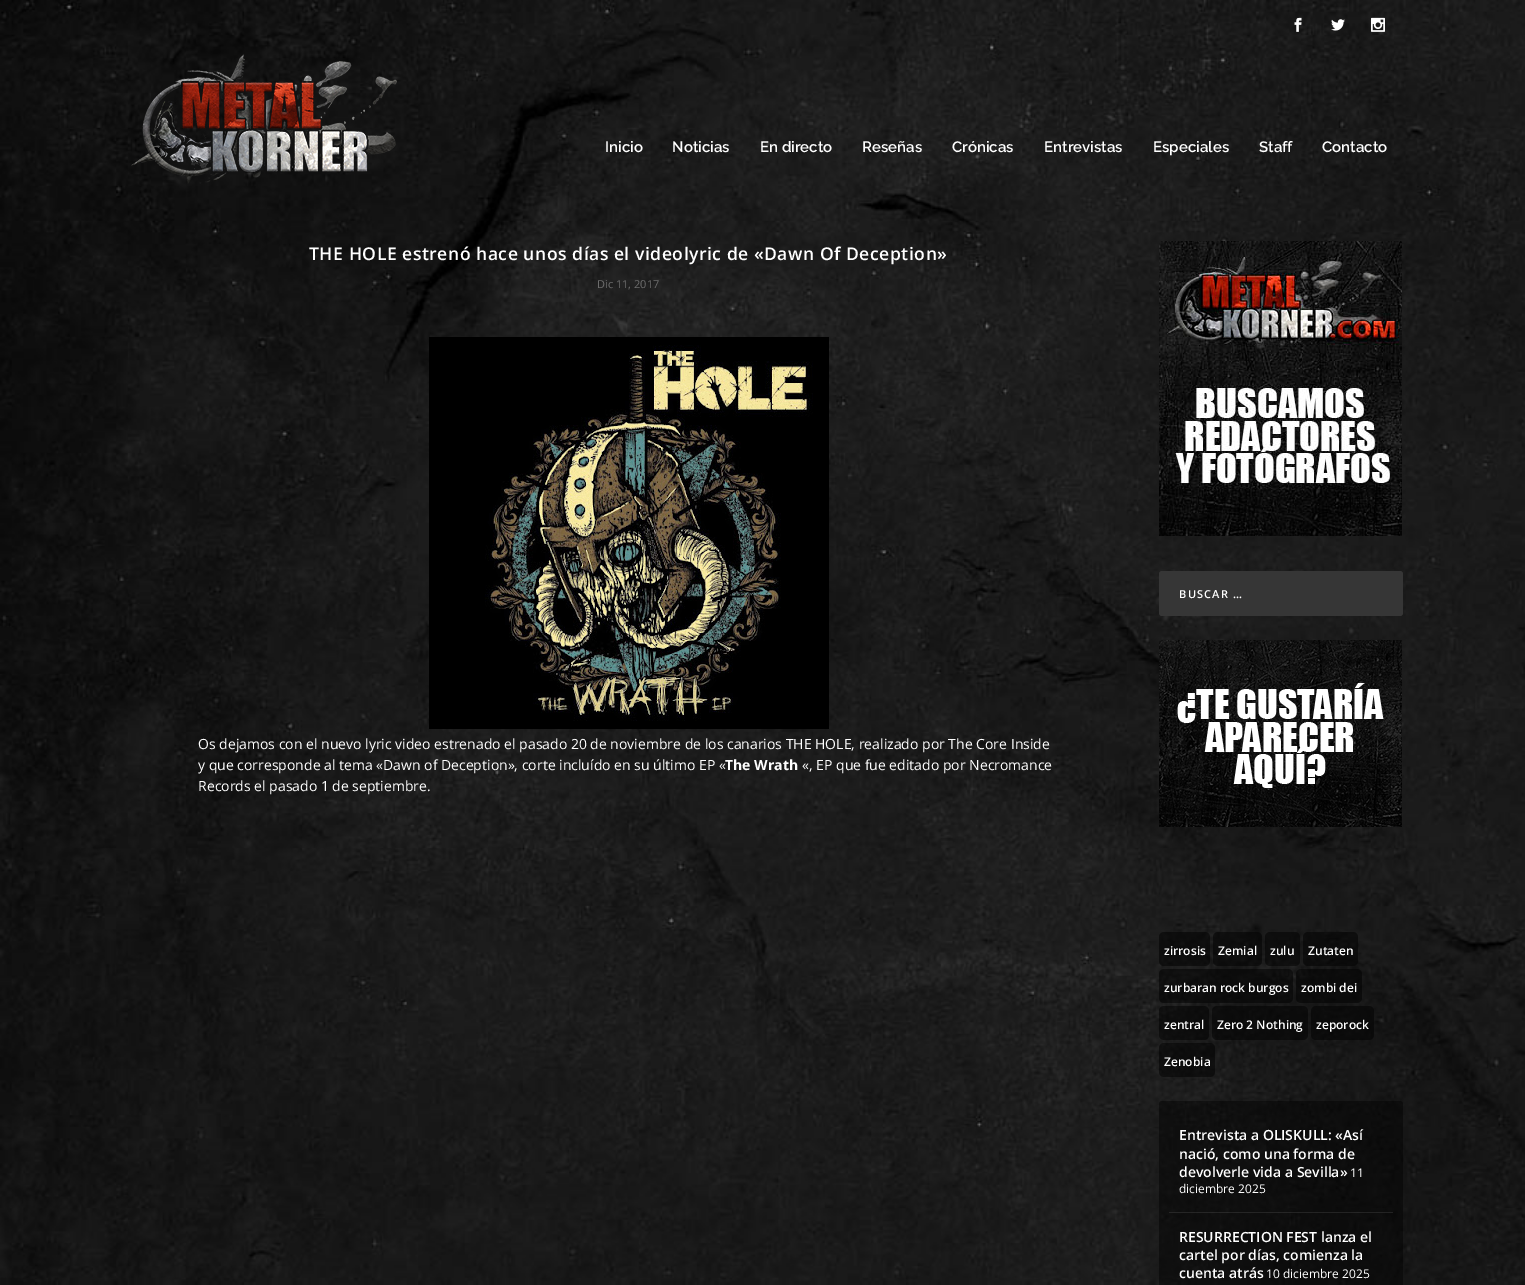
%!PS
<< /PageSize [1525 1285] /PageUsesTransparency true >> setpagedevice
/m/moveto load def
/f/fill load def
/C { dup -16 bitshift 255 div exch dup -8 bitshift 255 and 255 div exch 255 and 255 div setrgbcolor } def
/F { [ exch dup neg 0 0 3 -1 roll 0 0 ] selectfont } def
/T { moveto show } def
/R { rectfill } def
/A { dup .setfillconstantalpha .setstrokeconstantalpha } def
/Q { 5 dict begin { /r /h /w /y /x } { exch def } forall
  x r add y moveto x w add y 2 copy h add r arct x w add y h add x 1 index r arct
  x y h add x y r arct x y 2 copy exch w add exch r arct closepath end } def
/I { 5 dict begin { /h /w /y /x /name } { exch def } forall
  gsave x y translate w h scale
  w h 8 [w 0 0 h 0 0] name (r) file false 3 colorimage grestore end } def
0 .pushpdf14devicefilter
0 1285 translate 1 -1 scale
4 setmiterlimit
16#FFFFFF C
0 0 1525 1285 R
(1.rgb) 0 0 1525 1285 I
(2.rgb) 1294 17 8 15 I
(3.rgb) 1331 19 14 12 I
(4.rgb) 1371 17 14 15 I
(5.rgb) 131 54 266 130 I
/Raleway-Thin 15 F
(Inicio) 605 152 T
(Noticias) 672 152 T
(En directo) 760 152 T
(Reseñas) 862 152 T
(Crónicas) 952 152 T
(Entrevistas) 1044 152 T
(Especiales) 1153 152 T
(Staff) 1259 152 T
(Contacto) 1322 152 T
/OpenSans-SemiBold 17.6 F
309 260 m .5 0 (THE HOLE estrenó hace unos días el videolyric de «Dawn Of Deception») ashow
/OpenSans-Regular 11 F
16#6D6D6D C
(Dic 11, 2017) 597 288 T
(6.rgb) 429 337 400 392 I
/OpenSans-Regular 14 F
16#FFFFFF C
(Os dejamos con el nuevo lyric video estrenado el pasado 20 de noviembre de los canarios THE HOLE, realizado por The Core Inside) 198 749 T
(y que corresponde al tema «Dawn of Deception», corte incluído en su último EP «) 198 770 T
/OpenSans-Bold 14 F
(The Wrath) 725 770 T
/OpenSans-Regular 14 F
(«, EP que fue editado por Necromance) 802 770 T
(Records el pasado 1 de septiembre.) 198 791 T
(7.rgb) 1159 241 243 295 I
16#363636 C
1159 571 244 45 3 Q f
/OpenSans-SemiBold 11 F
16#FFFFFF C
1179 598 m 1.25 0 (BUSCAR …) ashow
(8.rgb) 1159 640 243 187 I
0.52 A
16#000000 C
1159 932 51 34 5 Q f
/OpenSans-SemiBold 12 F
1 A
16#FFFFFF C
(zirrosis) 1164 955 T
0.52 A
16#000000 C
1213 932 49 34 5 Q f
1 A
16#FFFFFF C
(Zemial) 1218 955 T
0.52 A
16#000000 C
1265 932 35 34 5 Q f
1 A
16#FFFFFF C
(zulu) 1270 955 T
0.52 A
16#000000 C
1303 932 55 34 5 Q f
1 A
16#FFFFFF C
(Zutaten) 1308 955 T
0.52 A
16#000000 C
1159 969 134 34 5 Q f
1 A
16#FFFFFF C
(zurbaran rock burgos) 1164 992 T
0.52 A
16#000000 C
1296 969 66 34 5 Q f
1 A
16#FFFFFF C
(zombi dei) 1301 992 T
0.52 A
16#000000 C
1159 1006 50 34 5 Q f
1 A
16#FFFFFF C
(zentral) 1164 1029 T
0.52 A
16#000000 C
1212 1006 96 34 5 Q f
1 A
16#FFFFFF C
(Zero 2 Nothing) 1217 1029 T
0.52 A
16#000000 C
1311 1006 63 34 5 Q f
1 A
16#FFFFFF C
(zeporock) 1316 1029 T
0.52 A
16#000000 C
1159 1043 56 34 5 Q f
1 A
16#FFFFFF C
(Zenobia) 1164 1066 T
0.45 A
16#000000 C
1159 1101 244 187 3 Q f
0.12 A
16#CCCCCC C
1169 1212 224 1 R
/OpenSans-SemiBold 14 F
1 A
16#FFFFFF C
(Entrevista a OLISKULL: «Así) 1179 1140 T
(nació, como una forma de) 1179 1159 T
(devolverle vida a Sevilla») 1179 1177 T
/OpenSans-Regular 12 F
(11) 1350 1177 T
(diciembre 2025) 1179 1193 T
/OpenSans-SemiBold 14 F
(RESURRECTION FEST lanza el) 1179 1242 T
(cartel por días, comienza la) 1179 1260 T
(cuenta atrás) 1179 1278 T
/OpenSans-Regular 12 F
(10 diciembre 2025) 1266 1278 T
.poppdf14devicefilter showpage
